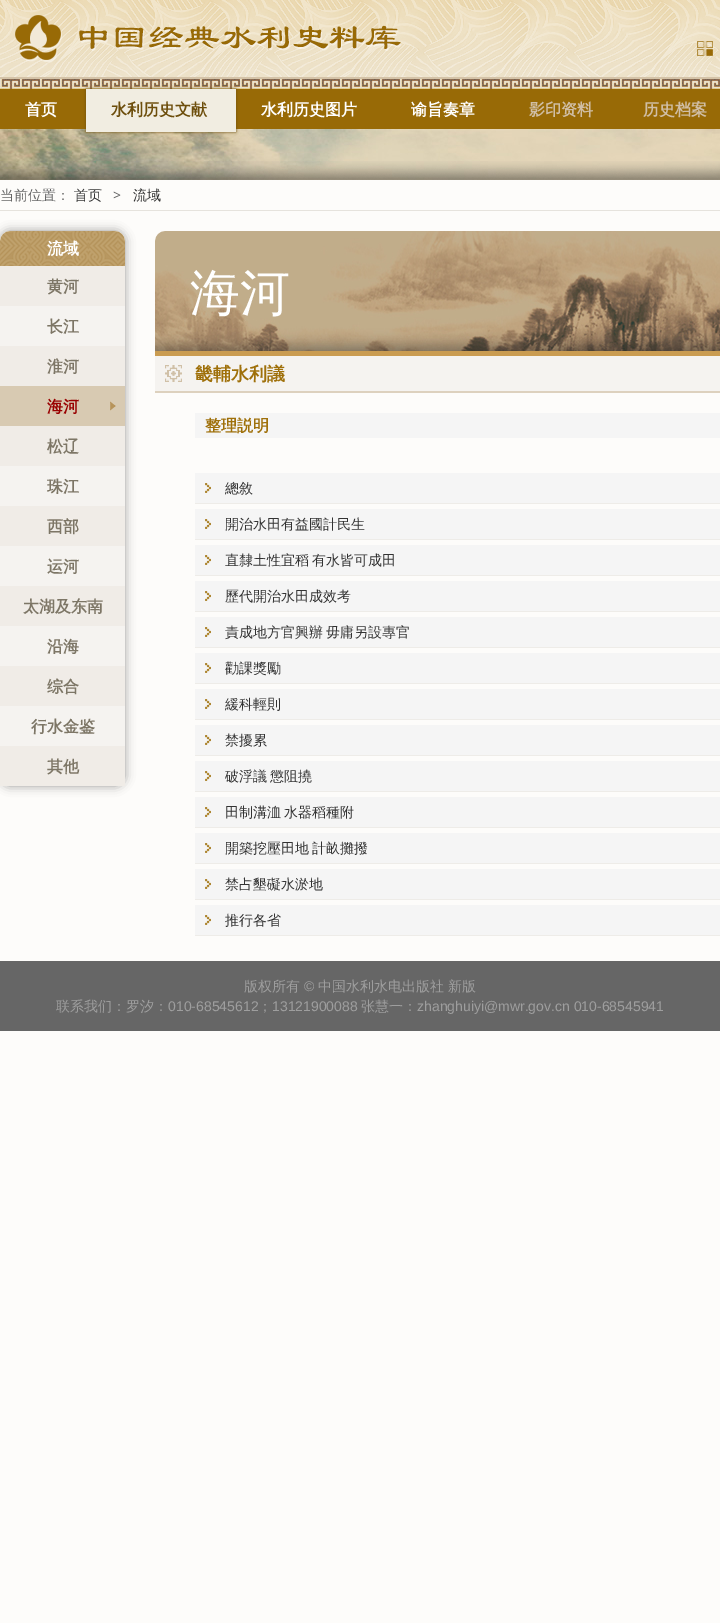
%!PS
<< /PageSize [720 1623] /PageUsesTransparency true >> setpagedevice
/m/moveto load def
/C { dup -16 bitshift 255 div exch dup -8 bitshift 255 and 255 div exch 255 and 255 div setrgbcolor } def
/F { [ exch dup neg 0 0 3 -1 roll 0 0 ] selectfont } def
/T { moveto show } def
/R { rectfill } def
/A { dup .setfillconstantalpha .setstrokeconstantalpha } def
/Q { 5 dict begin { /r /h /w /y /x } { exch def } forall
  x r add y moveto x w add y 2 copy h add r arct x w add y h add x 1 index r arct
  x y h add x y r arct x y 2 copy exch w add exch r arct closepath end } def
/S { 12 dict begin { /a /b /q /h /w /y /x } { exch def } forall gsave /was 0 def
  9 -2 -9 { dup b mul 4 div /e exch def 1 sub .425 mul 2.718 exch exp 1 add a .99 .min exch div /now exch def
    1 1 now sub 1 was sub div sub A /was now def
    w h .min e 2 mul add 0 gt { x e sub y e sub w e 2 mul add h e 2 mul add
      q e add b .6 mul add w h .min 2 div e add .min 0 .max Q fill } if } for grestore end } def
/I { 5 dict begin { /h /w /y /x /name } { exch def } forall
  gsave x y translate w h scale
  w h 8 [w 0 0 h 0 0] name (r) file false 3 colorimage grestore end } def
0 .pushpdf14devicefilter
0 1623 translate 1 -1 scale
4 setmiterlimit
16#FDFCFA C
0 0 720 1623 R
(1.rgb) 0 0 720 77 I
(2.rgb) 15 15 387 47 I
(3.rgb) 697 41 16 15 I
(4.rgb) 0 77 720 12 I
16#986A06 C
0 89 720 40 R
/WenQuanYiZenHei-Bold 16 F
16#FFFFFF C
(首页) 25 115 T
(5.rgb) 0 129 720 51 I
16#6D4E0C C
86 89 150 43 0 1.5 1 S
16#F1EDE1 C
86 89 150 43 R
16#6D4E0C C
(水利历史文献) 111 115 T
16#FFFFFF C
(水利历史图片) 261 115 T
(谕旨奏章) 411 115 T
16#D0BEA5 C
(影印资料) 529 115 T
(历史档案) 643 115 T
(6.rgb) 0 161 720 19 I
16#E6E3DD C
0 210 720 1 R
/WenQuanYiZenHei-Medium 14 F
16#666666 C
(当前位置：) 0 200 T
16#333333 C
(首页) 74 200 T
/NotoSans-Regular 14 F
16#666666 C
(>) 113 200 T
/WenQuanYiZenHei-Medium 14 F
16#333333 C
(流域) 133 200 T
16#999999 C
0 231 125 555 10 5 1 S
(7.rgb) 0 231 125 35 I
/WenQuanYiZenHei-Bold 16 F
16#FFFFFF C
(流域) 47 254 T
(8.rgb) 0 266 125 520 I
16#7D7666 C
(黄河) 47 292 T
(长江) 47 332 T
(淮河) 47 372 T
16#D8CAB2 C
0 386 125 40 R
(9.rgb) 110 401 6 10 I
16#990000 C
(海河) 47 412 T
16#7D7666 C
(松辽) 47 452 T
(珠江) 47 492 T
(西部) 47 532 T
(运河) 47 572 T
(太湖及东南) 23 612 T
(沿海) 47 652 T
(综合) 47 692 T
(行水金鉴) 31 732 T
(其他) 47 772 T
(10.rgb) 155 231 565 120 I
16#CA9C51 C
155 351 565 5 R
/WenQuanYiZenHei-Medium 50 F
16#FFFFFF C
(海河) 190 310 T
16#F5F3F0 C
155 356 565 35 R
(11.rgb) 165 365 17 17 I
16#DDD1BE C
155 391 565 2 R
/WenQuanYiZenHei-Bold 18 F
16#9F700A C
(畿輔水利議) 195 380 T
16#F5F5F5 C
195 413 525 25 R
/WenQuanYiZenHei-Bold 16 F
16#9F700A C
(整理説明) 205 431 T
16#F5F5F5 C
195 473 525 30 R
(12.rgb) 205 483 6 10 I
16#EEECE8 C
195 503 525 1 R
/WenQuanYiZenHei-Medium 14 F
16#333333 C
(總敘) 225 493 T
16#F5F5F5 C
195 509 525 30 R
(12.rgb) 205 519 6 10 I
16#EEECE8 C
195 539 525 1 R
16#333333 C
(開治水田有益國計民生) 225 529 T
16#F5F5F5 C
195 545 525 30 R
(12.rgb) 205 555 6 10 I
16#EEECE8 C
195 575 525 1 R
16#333333 C
225 565 m -1 0 32 (直隸土性宜稻 有水皆可成田) widthshow
16#F5F5F5 C
195 581 525 30 R
(12.rgb) 205 591 6 10 I
16#EEECE8 C
195 611 525 1 R
16#333333 C
(歷代開治水田成效考) 225 601 T
16#F5F5F5 C
195 617 525 30 R
(12.rgb) 205 627 6 10 I
16#EEECE8 C
195 647 525 1 R
16#333333 C
225 637 m -1 0 32 (責成地方官興辦 毋庸另設專官) widthshow
16#F5F5F5 C
195 653 525 30 R
(12.rgb) 205 663 6 10 I
16#EEECE8 C
195 683 525 1 R
16#333333 C
(勸課獎勵) 225 673 T
16#F5F5F5 C
195 689 525 30 R
(12.rgb) 205 699 6 10 I
16#EEECE8 C
195 719 525 1 R
16#333333 C
(緩科輕則) 225 709 T
16#F5F5F5 C
195 725 525 30 R
(12.rgb) 205 735 6 10 I
16#EEECE8 C
195 755 525 1 R
16#333333 C
(禁擾累) 225 745 T
16#F5F5F5 C
195 761 525 30 R
(12.rgb) 205 771 6 10 I
16#EEECE8 C
195 791 525 1 R
16#333333 C
225 781 m -1 0 32 (破浮議 懲阻撓) widthshow
16#F5F5F5 C
195 797 525 30 R
(12.rgb) 205 807 6 10 I
16#EEECE8 C
195 827 525 1 R
16#333333 C
225 817 m -1 0 32 (田制溝洫 水器稻種附) widthshow
16#F5F5F5 C
195 833 525 30 R
(12.rgb) 205 843 6 10 I
16#EEECE8 C
195 863 525 1 R
16#333333 C
225 853 m -1 0 32 (開築挖壓田地 計畝攤撥) widthshow
16#F5F5F5 C
195 869 525 30 R
(12.rgb) 205 879 6 10 I
16#EEECE8 C
195 899 525 1 R
16#333333 C
(禁占墾礙水淤地) 225 889 T
16#F5F5F5 C
195 905 525 30 R
(12.rgb) 205 915 6 10 I
16#EEECE8 C
195 935 525 1 R
16#333333 C
(推行各省) 225 925 T
16#666666 C
0 961 720 70 R
16#9E9E9E C
(版权所有) 244 991 T
/LiberationSans-Regular 14 F
(©) 304 991 T
/WenQuanYiZenHei-Medium 14 F
(中国水利水电出版社) 318 991 T
(新版) 448 991 T
(联系我们：罗汐：) 56 1011 T
/LiberationSans-Regular 14 F
(010-68545612) 168 1011 T
/WenQuanYiZenHei-Medium 14 F
(；) 258 1011 T
/LiberationSans-Regular 14 F
(13121900088) 272 1011 T
/WenQuanYiZenHei-Medium 14 F
(张慧一：) 361 1011 T
/LiberationSans-Regular 14 F
(zhanghuiyi@mwr.gov.cn 010-68545941) 417 1011 T
.poppdf14devicefilter showpage
